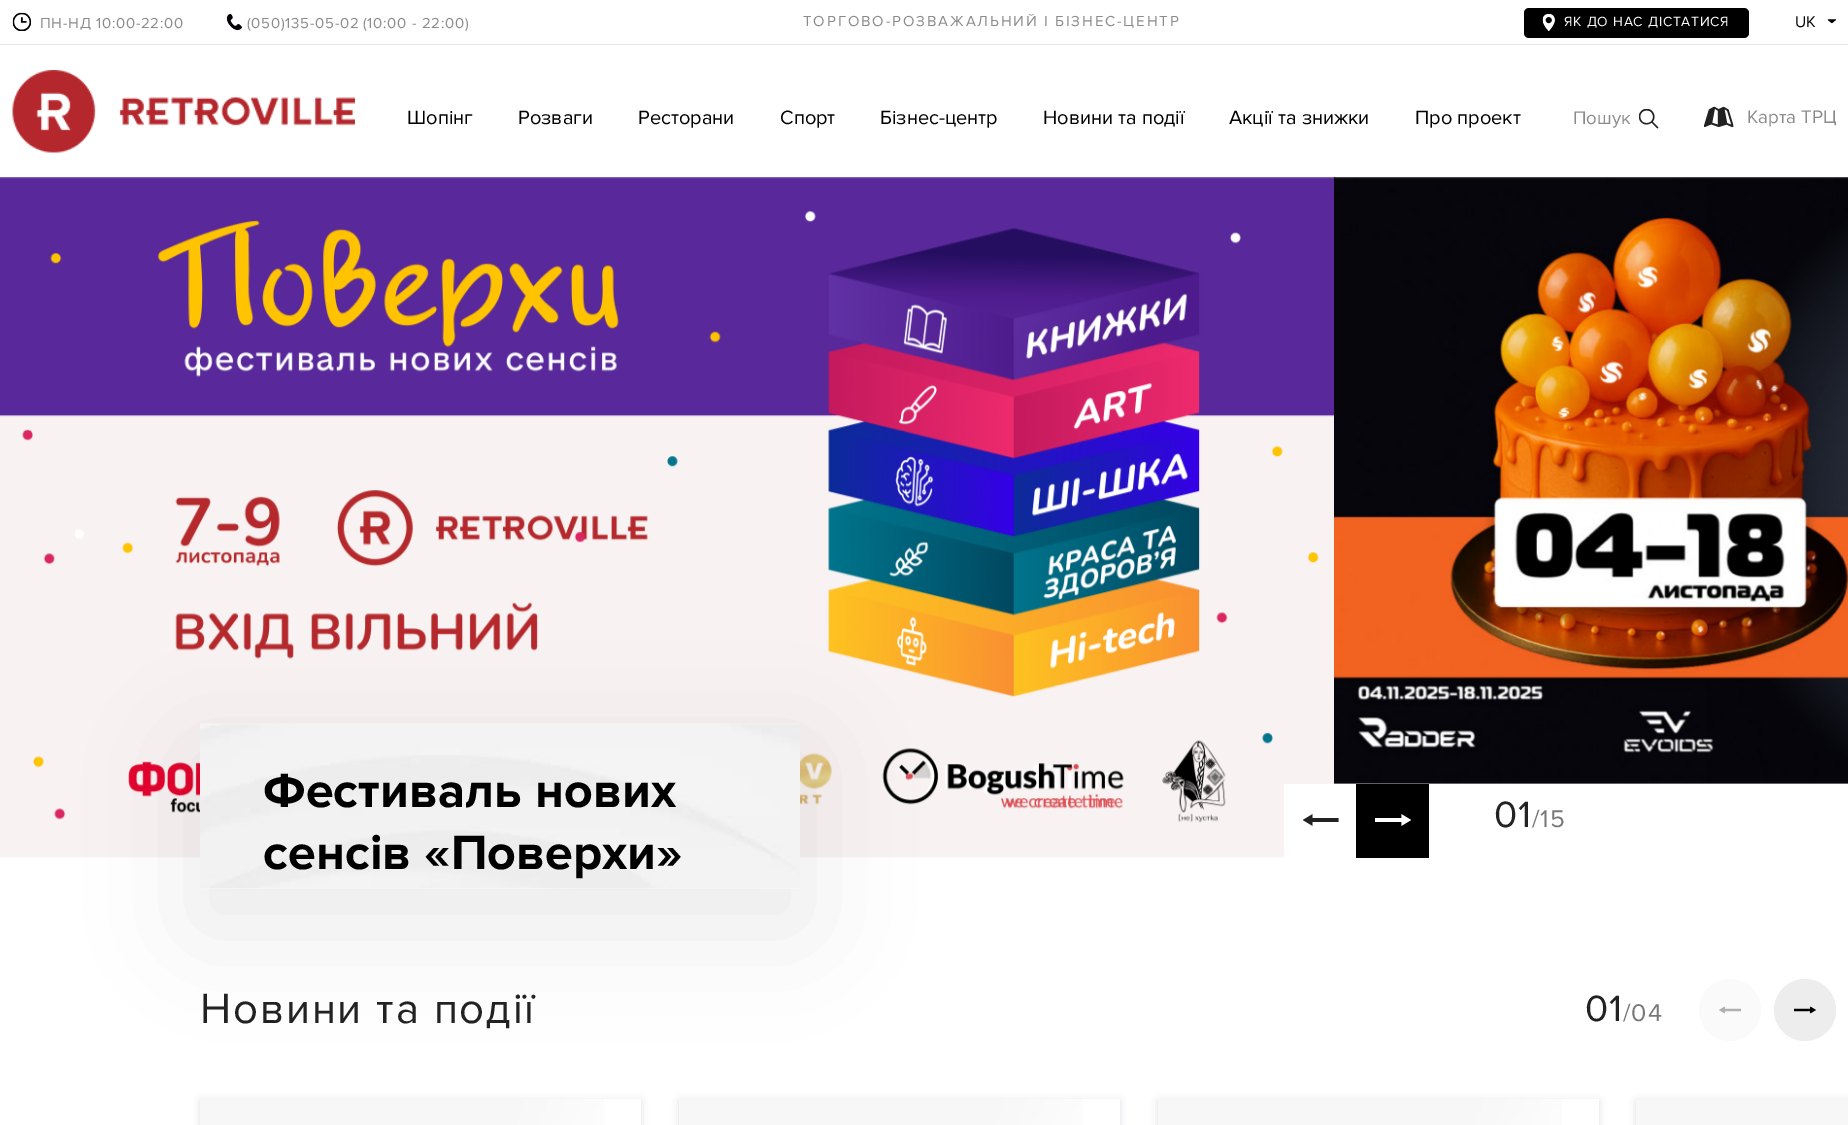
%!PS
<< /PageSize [1848 1125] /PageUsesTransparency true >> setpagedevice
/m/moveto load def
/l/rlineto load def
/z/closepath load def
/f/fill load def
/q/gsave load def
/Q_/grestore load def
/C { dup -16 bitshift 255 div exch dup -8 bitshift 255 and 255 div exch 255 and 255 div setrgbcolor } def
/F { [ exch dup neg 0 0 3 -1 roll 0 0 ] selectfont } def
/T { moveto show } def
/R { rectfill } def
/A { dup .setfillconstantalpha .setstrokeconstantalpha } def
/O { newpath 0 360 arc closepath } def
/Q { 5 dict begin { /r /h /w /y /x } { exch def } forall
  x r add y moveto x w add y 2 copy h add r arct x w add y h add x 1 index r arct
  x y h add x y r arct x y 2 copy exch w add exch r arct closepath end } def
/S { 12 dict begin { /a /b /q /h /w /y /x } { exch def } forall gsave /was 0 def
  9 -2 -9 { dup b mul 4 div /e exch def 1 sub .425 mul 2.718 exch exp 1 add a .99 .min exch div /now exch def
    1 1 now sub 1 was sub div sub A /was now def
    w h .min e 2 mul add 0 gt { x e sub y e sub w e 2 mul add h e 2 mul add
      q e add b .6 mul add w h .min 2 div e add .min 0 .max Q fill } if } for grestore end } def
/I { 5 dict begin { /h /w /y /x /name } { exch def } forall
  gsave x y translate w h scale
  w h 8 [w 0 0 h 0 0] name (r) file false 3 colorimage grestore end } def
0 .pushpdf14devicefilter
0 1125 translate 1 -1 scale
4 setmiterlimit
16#FFFFFF C
0 0 1848 1125 R
16#E5E5E5 C
0 44 1848 1 R
(1.rgb) 12 12 19 19 I
/ProximaNova-Regular 15 F
16#8B8B8B C
40 28 m .75 0 (ПН-НД 10:00-22:00) ashow
(2.rgb) 226 14 16 16 I
247 28 m .75 0 (\(050\)135-05-02) ashow
363 28 m .75 0 (\(10:00 - 22:00\)) ashow
803 26 m 1.9 0 (ТОРГОВО-РОЗВАЖАЛЬНИЙ І БІЗНЕС-ЦЕНТР) ashow
16#000000 C
1524 8 225 30 5 Q f
(3.rgb) 1542 14 13 17 I
/ProximaNova-Regular 13.75 F
16#FFFFFF C
1564 26 m .8 0 (ЯК ДО НАС ДІСТАТИСЯ) ashow
/ProximaNova-Regular 16 F
16#000000 C
(UK) 1795 27 T
(4.rgb) 1827 19 9 5 I
(5.rgb) 12 70 343 83 I
/ProximaNova-Regular 20 F
(Шопінг) 407 124 T
(Розваги) 518 124 T
(Ресторани) 638 124 T
(Спорт) 780 124 T
(Бізнес-центр) 880 124 T
(Новини та події) 1043 124 T
(Акції та знижки) 1229 124 T
(Про проект) 1415 124 T
/ProximaNova-Regular 18.75 F
16#8B8B8B C
(Пошук) 1573 124 T
(6.rgb) 1639 109 20 20 I
(7.rgb) 1704 106 30 22 I
(Карта ТРЦ) 1747 123 T
16#FAFAFA C
1335 178 513 606 R
0 178 1335 680 R
(10.rgb) 0 177 1335 680 I
(8.rgb) 1334 177 1 2 I
(9.rgb) 1334 177 514 607 I
16#FFFFFF C
200 724 600 134 R
16#000000 C
196 755 608 173 0 51 .08 S
(11.rgb) 200 723 600 166 I
/ProximaNova-Bold 50 F
(Фестиваль нових) 263 807 T
(сенсів «Поверхи») 263 869 T
16#FFFFFF C
1284 784 51 74 R
(12.rgb) 1303 814 36 12 I
16#000000 C
1356 784 73 74 R
(13.rgb) 1375 814 36 12 I
/ProximaNova-Regular 38 F
16#222222 C
1494 827 m 1 0 (01) ashow
/ProximaNova-Regular 25 F
16#777777 C
1532 827 m 1 0 (/15) ashow
/ProximaNova-Regular 43.75 F
16#222222 C
200 1023 m 1.75 0 (Новини та події) ashow
/ProximaNova-Regular 38 F
1585 1021 m 1 0 (01) ashow
/ProximaNova-Regular 25 F
16#777777 C
1623 1021 m 1 0 (/04) ashow
16#FAFAFA C
1730 1010 31 O f
(14.rgb) 1719 1006 22 8 I
16#EDEDED C
1805 1010 31 O f
(15.rgb) 1794 1006 22 8 I
q
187 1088 m 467 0 l 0 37 l -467 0 l z 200 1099 m 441 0 l 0 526 l -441 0 l z eoclip newpath
16#323641 C
200 1101 441 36 0 4 .15 S
Q_
(16.rgb) 200 1099 404 26 I
q
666 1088 m 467 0 l 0 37 l -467 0 l z 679 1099 m 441 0 l 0 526 l -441 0 l z eoclip newpath
16#323641 C
679 1101 441 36 0 4 .15 S
Q_
(17.rgb) 679 1099 404 26 I
16#323641 C
1158 1101 441 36 0 4 .15 S
16#FFFFFF C
1158 1099 441 26 R
(18.rgb) 1158 1099 404 26 I
16#323641 C
1636 1101 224 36 0 4 .15 S
16#F7F7F7 C
1636 1099 212 26 R
.poppdf14devicefilter showpage
